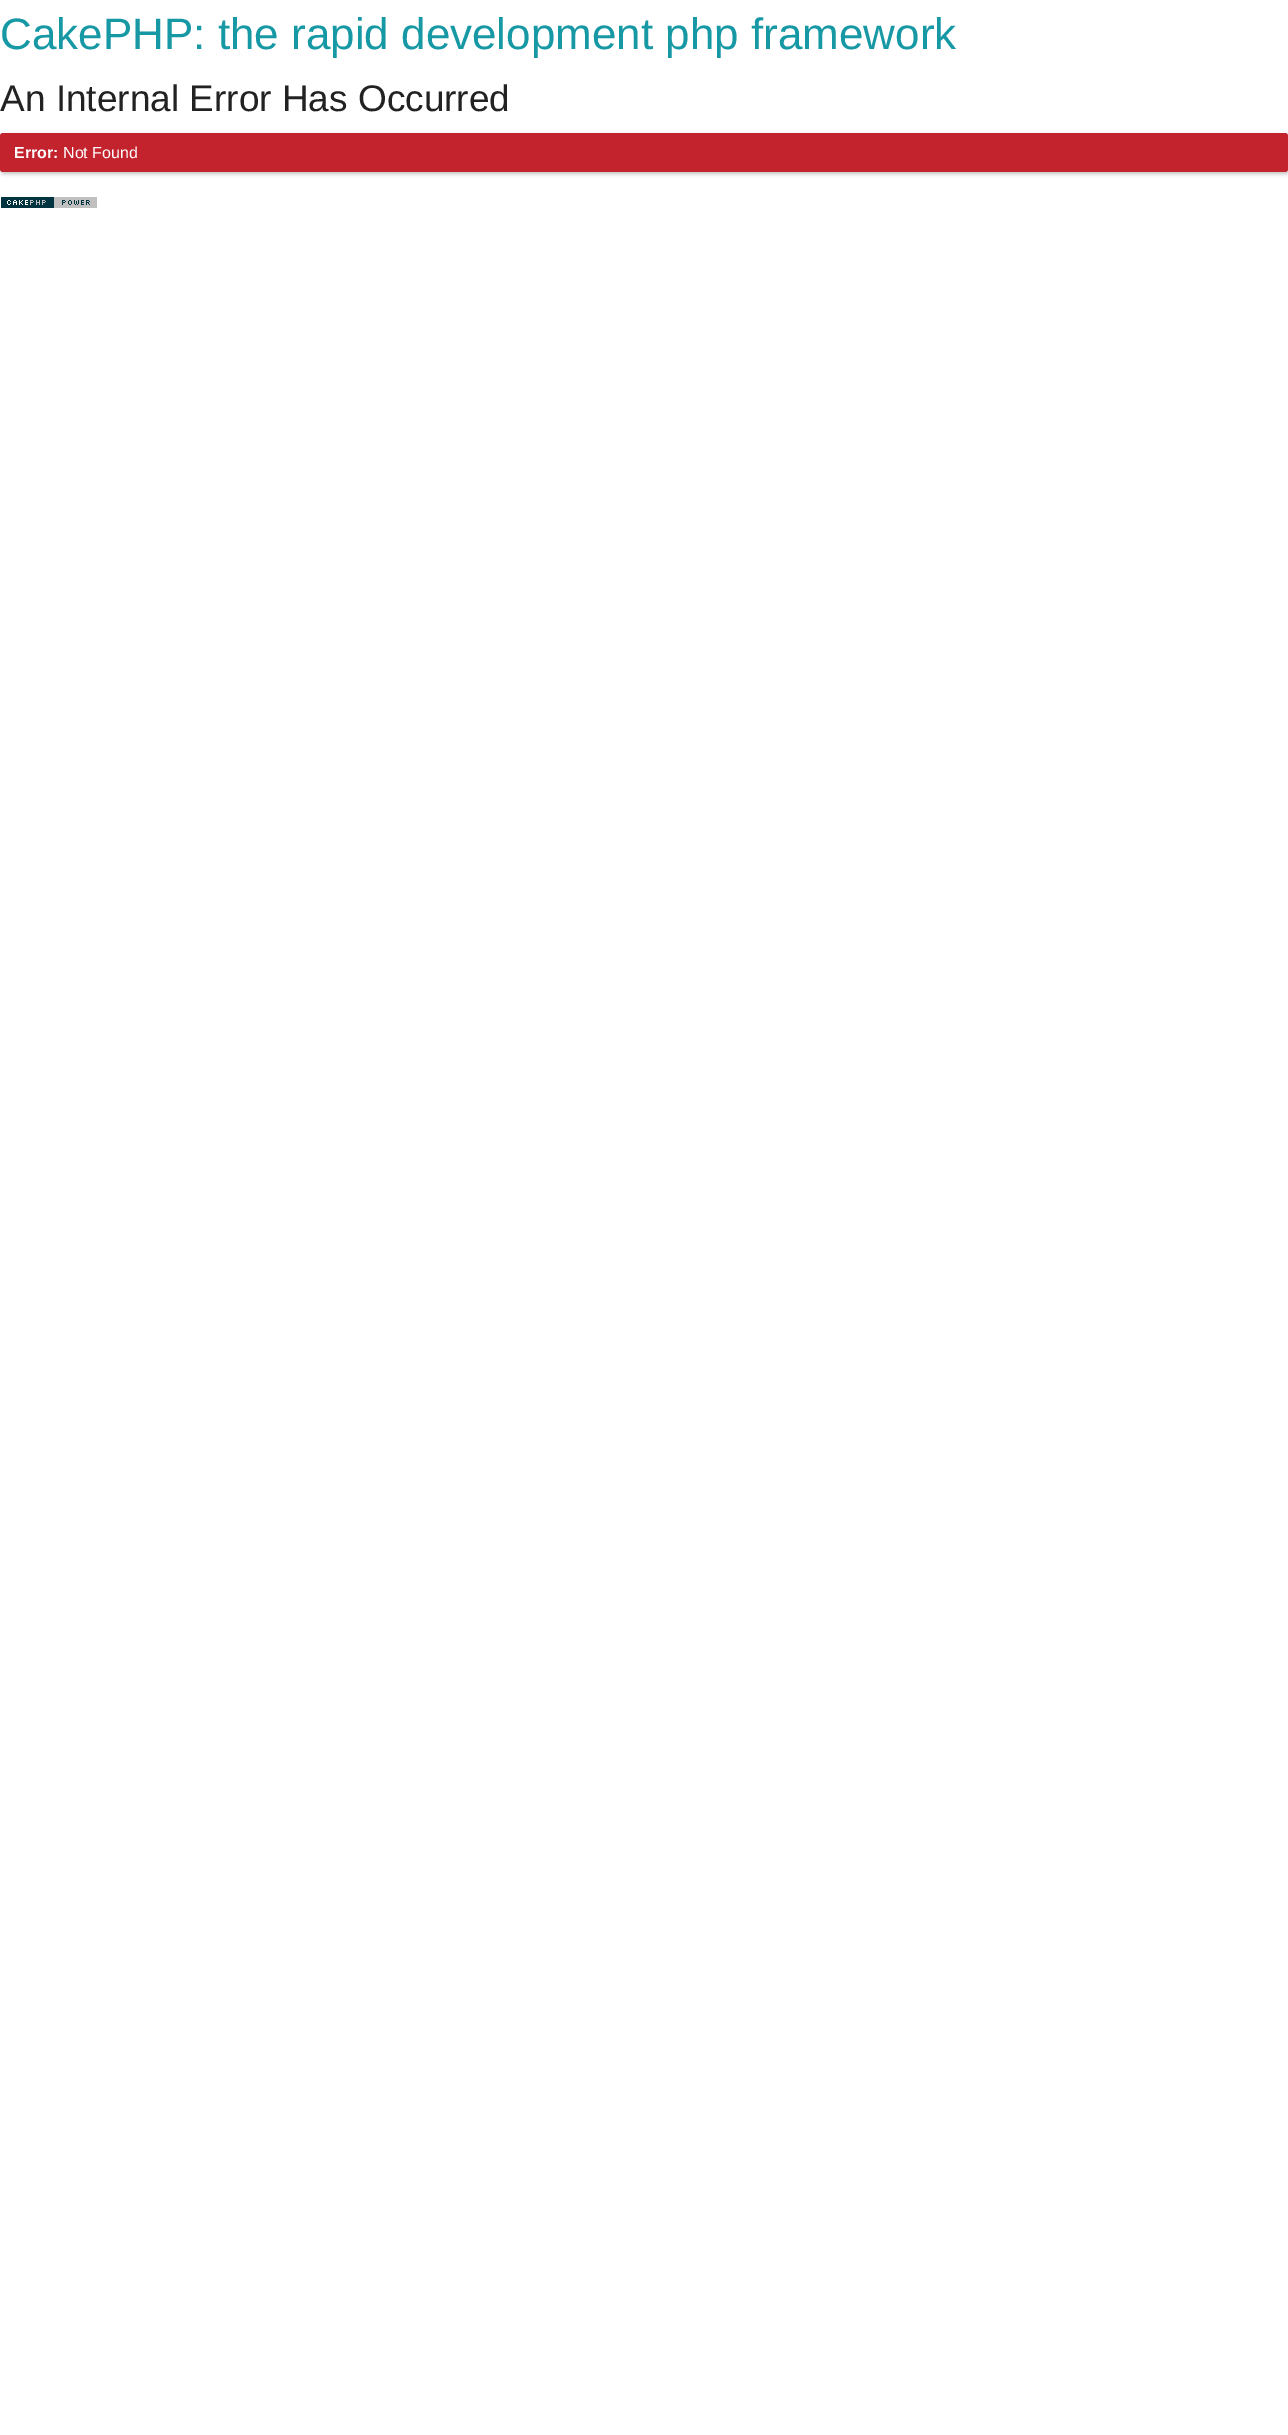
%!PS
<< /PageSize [1288 2435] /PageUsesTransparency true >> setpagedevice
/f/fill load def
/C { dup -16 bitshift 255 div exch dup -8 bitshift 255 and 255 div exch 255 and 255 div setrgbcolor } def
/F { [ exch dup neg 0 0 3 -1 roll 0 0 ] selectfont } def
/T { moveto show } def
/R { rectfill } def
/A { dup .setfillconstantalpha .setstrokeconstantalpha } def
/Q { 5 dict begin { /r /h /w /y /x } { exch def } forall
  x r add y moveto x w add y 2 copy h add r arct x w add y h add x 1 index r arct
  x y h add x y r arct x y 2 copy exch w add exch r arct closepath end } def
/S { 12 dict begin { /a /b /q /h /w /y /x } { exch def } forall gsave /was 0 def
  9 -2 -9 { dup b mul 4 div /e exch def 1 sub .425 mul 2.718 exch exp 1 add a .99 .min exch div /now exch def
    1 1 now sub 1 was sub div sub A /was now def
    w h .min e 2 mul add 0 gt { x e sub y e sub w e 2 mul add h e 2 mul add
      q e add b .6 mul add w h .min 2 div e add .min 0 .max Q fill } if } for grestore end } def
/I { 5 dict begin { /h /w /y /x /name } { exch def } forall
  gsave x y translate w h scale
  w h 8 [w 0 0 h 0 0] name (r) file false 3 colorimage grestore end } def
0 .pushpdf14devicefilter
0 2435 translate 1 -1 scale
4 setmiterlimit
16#FFFFFF C
0 0 1288 2435 R
/LiberationSans-Regular 44 F
16#1798A5 C
(CakePHP: the rapid development php framework) 0 49 T
/LiberationSans-Regular 37 F
16#222222 C
(An Internal Error Has Occurred) 0 111 T
16#000000 C
1 135 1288 39 3 2 .24 S
16#C3232D C
0 133 1288 39 3 Q f
/LiberationSans-Bold 16 F
16#FFFFFF C
(Error:) 14 158 T
/LiberationSans-Regular 16 F
(Not Found) 63 158 T
(1.rgb) 1 197 96 11 I
.poppdf14devicefilter showpage
